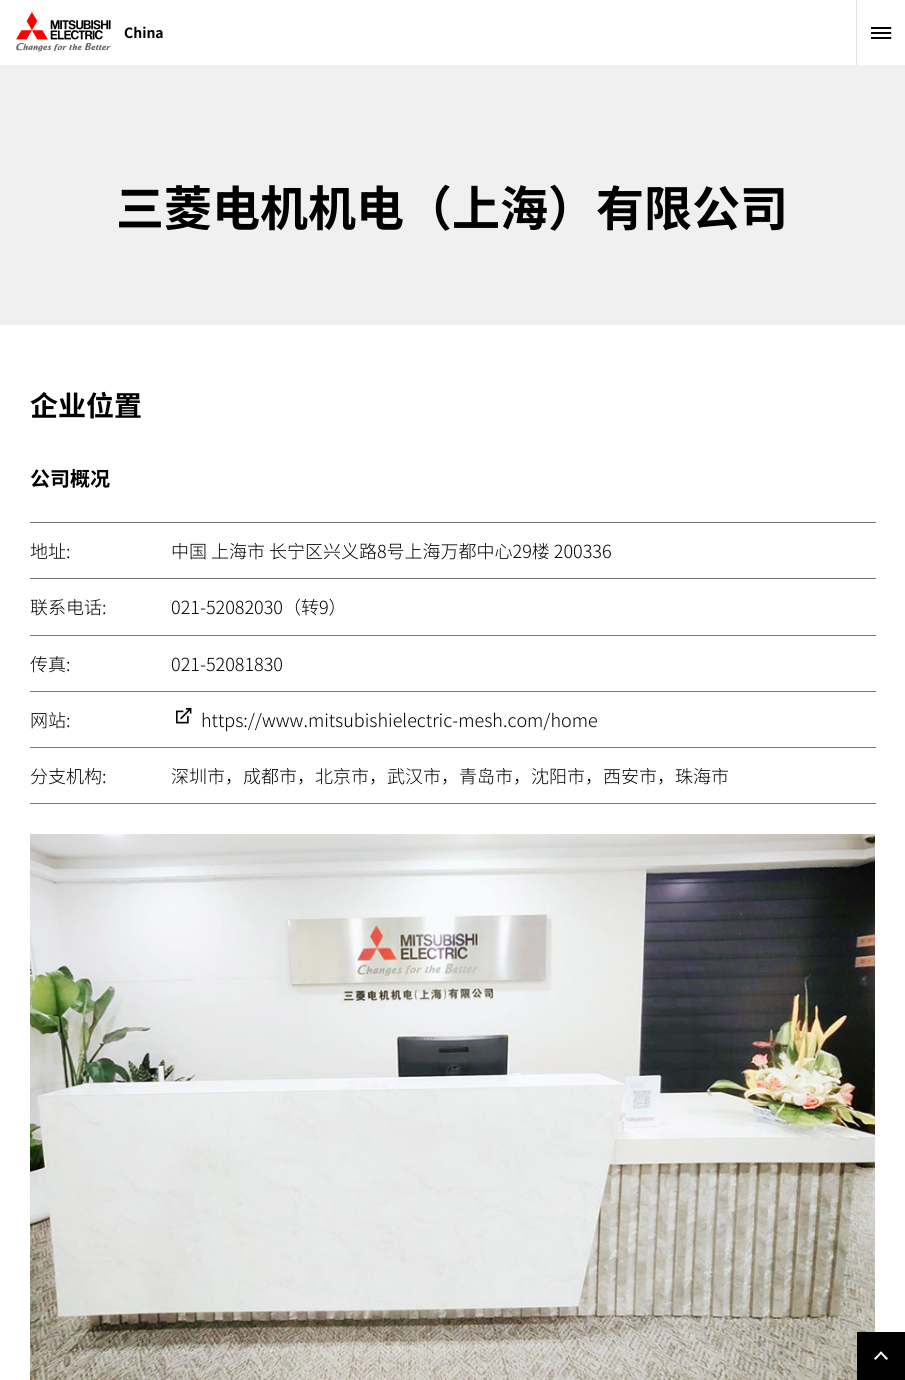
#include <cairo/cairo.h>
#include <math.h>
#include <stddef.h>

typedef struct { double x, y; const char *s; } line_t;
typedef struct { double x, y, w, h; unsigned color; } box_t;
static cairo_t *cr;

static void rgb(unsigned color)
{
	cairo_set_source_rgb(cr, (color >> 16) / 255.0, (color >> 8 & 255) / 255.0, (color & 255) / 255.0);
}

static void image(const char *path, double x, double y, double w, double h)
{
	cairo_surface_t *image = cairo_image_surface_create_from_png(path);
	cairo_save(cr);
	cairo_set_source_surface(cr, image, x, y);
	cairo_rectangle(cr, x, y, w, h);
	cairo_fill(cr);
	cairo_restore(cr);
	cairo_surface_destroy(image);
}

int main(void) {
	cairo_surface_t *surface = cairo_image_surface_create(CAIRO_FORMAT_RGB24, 905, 1380);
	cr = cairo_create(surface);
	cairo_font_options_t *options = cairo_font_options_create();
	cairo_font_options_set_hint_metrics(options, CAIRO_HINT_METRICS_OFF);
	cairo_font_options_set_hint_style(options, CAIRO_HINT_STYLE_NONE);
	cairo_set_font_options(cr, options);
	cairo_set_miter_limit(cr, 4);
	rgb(0xffffff);
	cairo_paint(cr);
	image("img/1.png", 16, 12, 95, 40);
	rgb(0xe1e1e1);
	cairo_rectangle(cr, 856, 0, 1, 65);
	cairo_fill(cr);
	image("img/2.png", 871, 27, 21, 12);
	{
		static const box_t items[] = {
			{0, 65, 905, 260, 0xf0f0f0},
			{30, 522, 846, 1, 0x757575},
			{30, 578, 846, 1, 0x757575},
			{30, 635, 846, 1, 0x757575},
			{30, 691, 846, 1, 0x757575},
		};
		for (size_t i = 0; i < sizeof items / sizeof *items; i++) {
			rgb(items[i].color);
			cairo_rectangle(cr, items[i].x, items[i].y, items[i].w, items[i].h);
			cairo_fill(cr);
		}
	}
	image("img/3.png", 176, 708, 16, 16);
	cairo_rectangle(cr, 30, 747, 846, 1);
	cairo_fill(cr);
	cairo_rectangle(cr, 30, 803, 846, 1);
	cairo_fill(cr);
	image("img/4.png", 30, 834, 845, 546);
	rgb(0x000000);
	cairo_rectangle(cr, 857, 1332, 48, 48);
	cairo_fill(cr);
	rgb(0xffffff);
	cairo_new_path(cr);
	cairo_move_to(cr, 881, 1351.5);
	cairo_line_to(cr, 888, 1358.5);
	cairo_line_to(cr, 886.5, 1360);
	cairo_line_to(cr, 879.5, 1352.5);
	cairo_close_path(cr);
	cairo_fill(cr);
	cairo_new_path(cr);
	cairo_move_to(cr, 881, 1351.5);
	cairo_line_to(cr, 882.5, 1352.5);
	cairo_line_to(cr, 875.5, 1360);
	cairo_line_to(cr, 874, 1358.5);
	cairo_close_path(cr);
	cairo_fill(cr);
	cairo_select_font_face(cr, "Noto Sans SC", CAIRO_FONT_SLANT_NORMAL, CAIRO_FONT_WEIGHT_BOLD);
	cairo_set_font_size(cr, 14);
	rgb(0x000000);
	cairo_move_to(cr, 124, 38);
	cairo_show_text(cr, "China");
	cairo_set_font_size(cr, 48);
	cairo_move_to(cr, 116, 226);
	cairo_show_text(cr, "三菱电机机电（上海）有限公司");
	cairo_set_font_size(cr, 28);
	cairo_move_to(cr, 30, 416);
	cairo_show_text(cr, "企业位置");
	cairo_set_font_size(cr, 20);
	cairo_move_to(cr, 30, 486);
	cairo_show_text(cr, "公司概况");
	cairo_select_font_face(cr, "Noto Sans SC Light", CAIRO_FONT_SLANT_NORMAL, CAIRO_FONT_WEIGHT_NORMAL);
	cairo_set_font_size(cr, 18);
	{
		static const line_t items[] = {
			{30, 558, "地址:"},
			{171, 558, "中国 上海市 长宁区兴义路8号上海万都中心29楼 200336"},
			{30, 614, "联系电话:"},
			{171, 614, "021-52082030（转9）"},
			{30, 671, "传真:"},
			{171, 671, "021-52081830"},
			{30, 727, "网站:"},
			{201, 727, "https://www.mitsubishielectric-mesh.com/home"},
			{30, 783, "分支机构:"},
			{171, 783, "深圳市，成都市，北京市，武汉市，青岛市，沈阳市，西安市，珠海市"},
		};
		for (size_t i = 0; i < sizeof items / sizeof *items; i++) {
			cairo_move_to(cr, items[i].x, items[i].y);
			cairo_show_text(cr, items[i].s);
		}
	}
	cairo_surface_write_to_png(surface, "page.png");
	cairo_font_options_destroy(options);
	cairo_destroy(cr);
	cairo_surface_destroy(surface);
	return 0;
}
